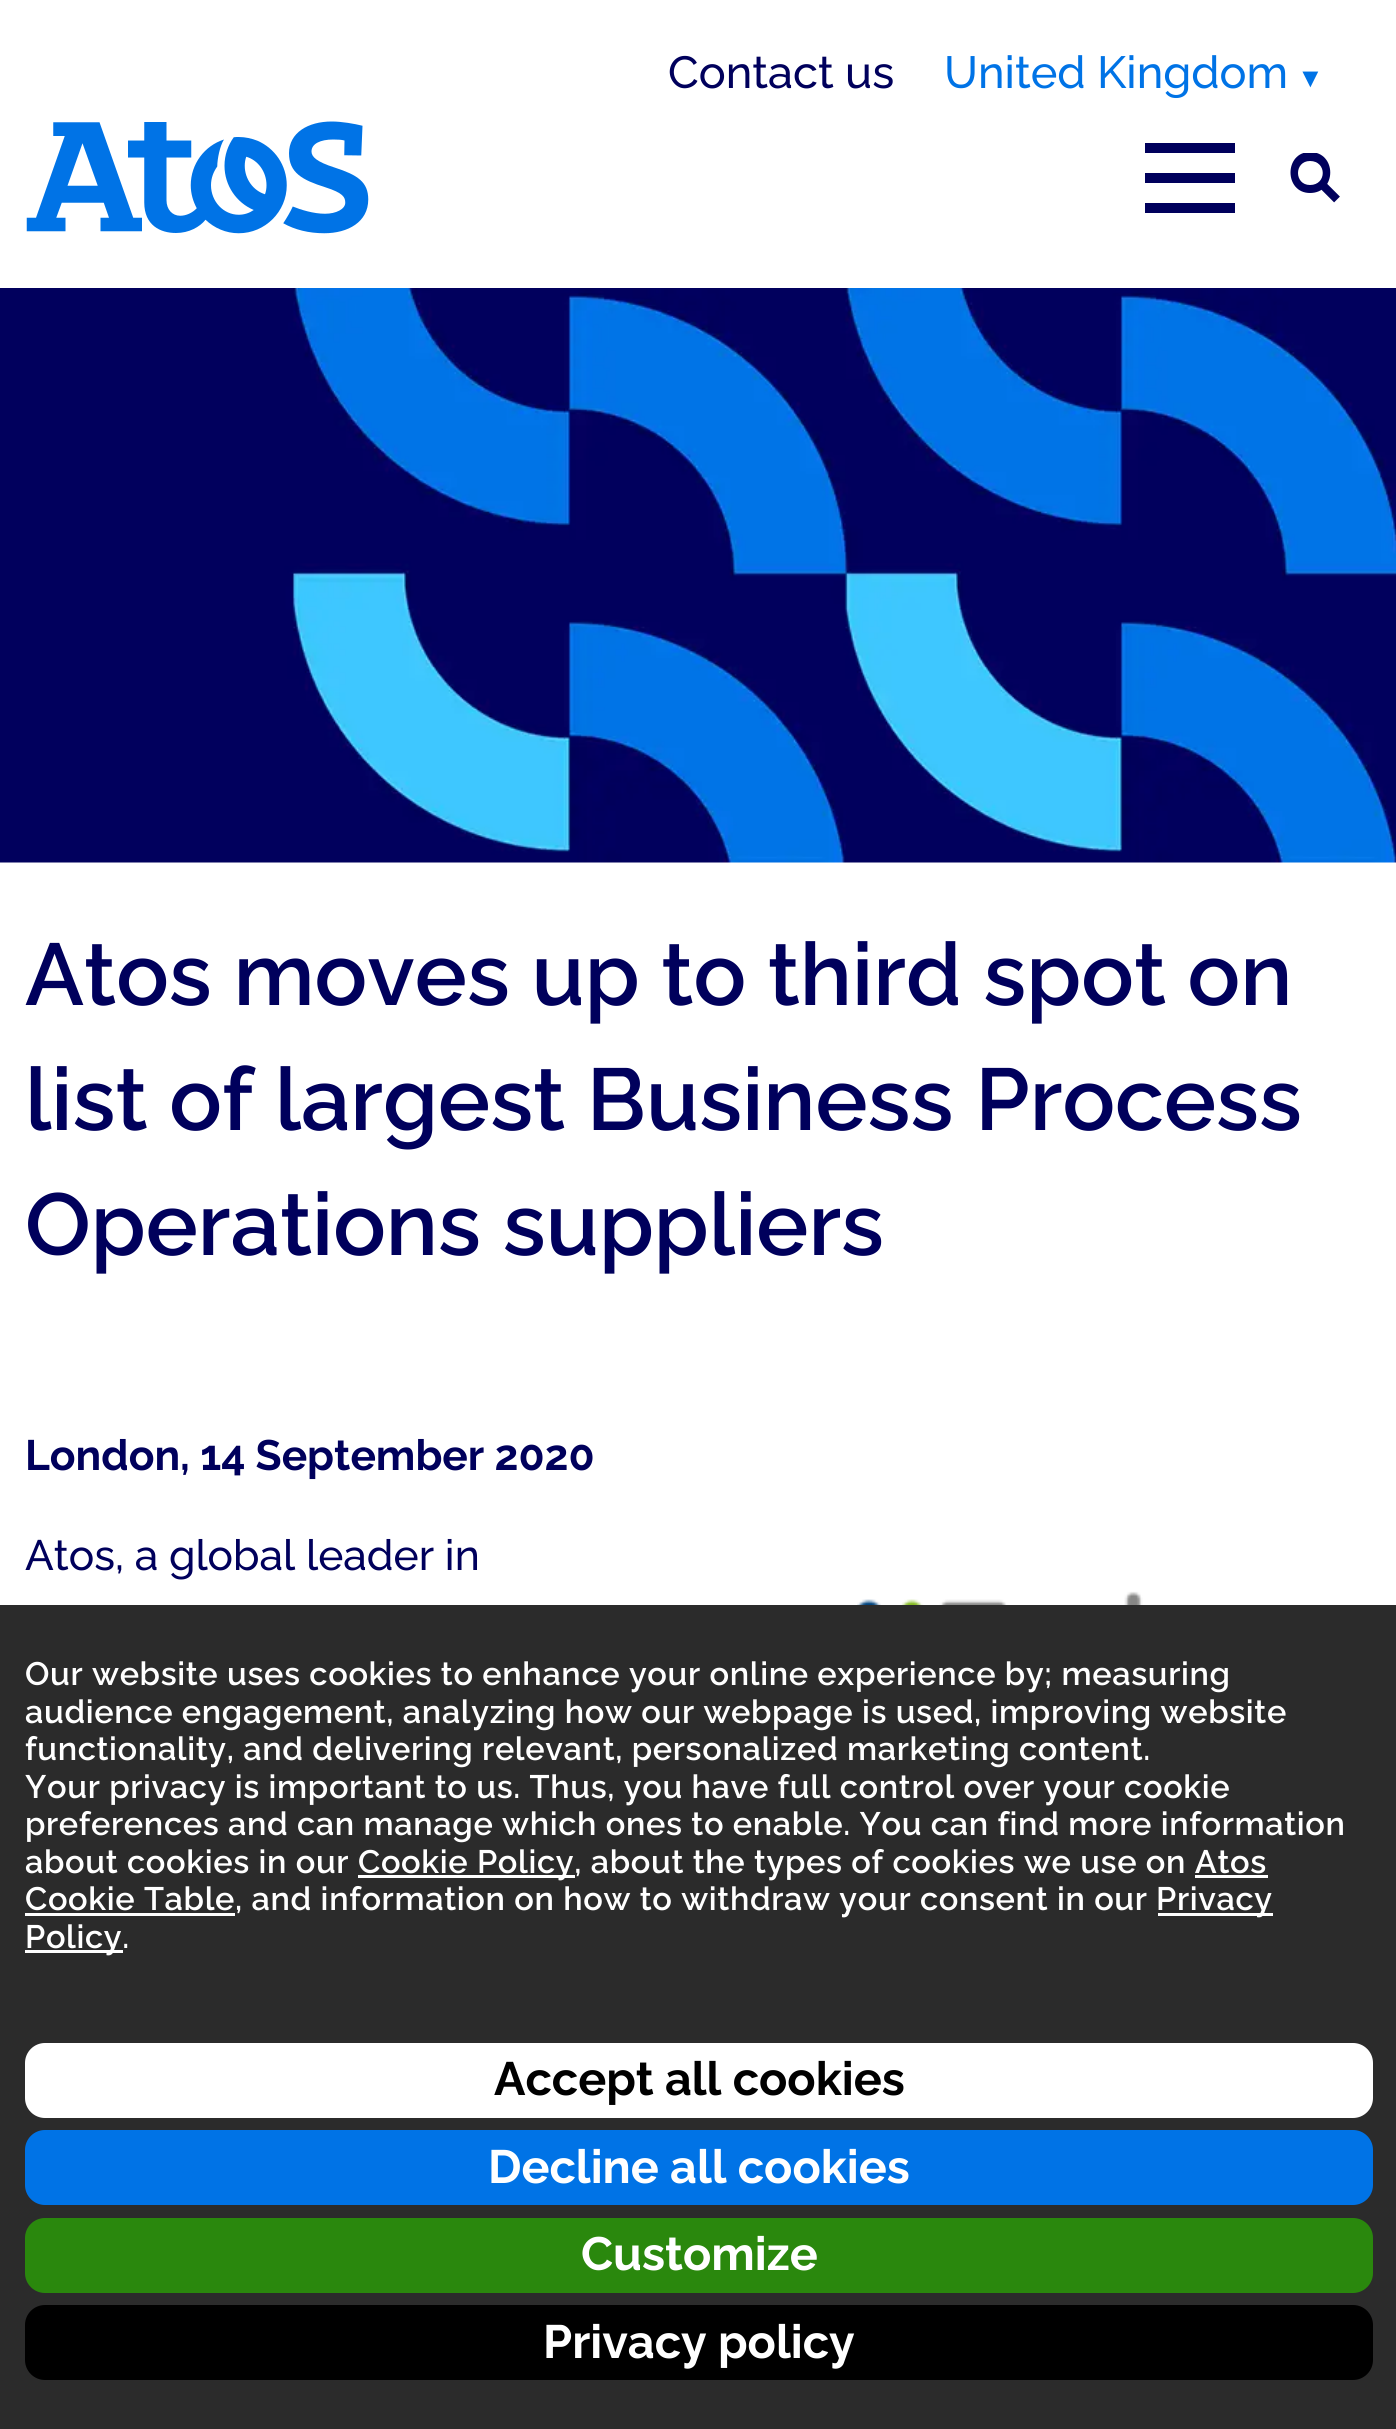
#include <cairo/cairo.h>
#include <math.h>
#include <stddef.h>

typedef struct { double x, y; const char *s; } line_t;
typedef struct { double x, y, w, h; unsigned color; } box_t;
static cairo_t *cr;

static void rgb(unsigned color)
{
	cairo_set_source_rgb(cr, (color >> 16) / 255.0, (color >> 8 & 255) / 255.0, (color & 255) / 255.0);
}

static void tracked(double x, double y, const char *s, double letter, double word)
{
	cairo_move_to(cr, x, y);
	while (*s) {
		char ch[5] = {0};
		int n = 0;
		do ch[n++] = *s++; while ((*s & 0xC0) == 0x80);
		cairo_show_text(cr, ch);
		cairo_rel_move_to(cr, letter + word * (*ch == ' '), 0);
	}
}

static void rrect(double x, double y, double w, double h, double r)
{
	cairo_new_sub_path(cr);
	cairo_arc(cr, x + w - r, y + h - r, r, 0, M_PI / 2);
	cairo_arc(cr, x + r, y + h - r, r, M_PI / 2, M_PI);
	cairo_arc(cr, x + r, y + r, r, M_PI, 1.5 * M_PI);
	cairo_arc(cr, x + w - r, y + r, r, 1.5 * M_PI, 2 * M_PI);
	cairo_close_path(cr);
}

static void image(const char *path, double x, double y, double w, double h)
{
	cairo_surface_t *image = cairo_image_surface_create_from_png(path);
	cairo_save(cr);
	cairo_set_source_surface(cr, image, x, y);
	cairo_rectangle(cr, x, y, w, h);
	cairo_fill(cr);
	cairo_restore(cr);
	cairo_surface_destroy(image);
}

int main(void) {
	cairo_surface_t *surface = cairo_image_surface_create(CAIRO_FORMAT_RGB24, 1396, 2429);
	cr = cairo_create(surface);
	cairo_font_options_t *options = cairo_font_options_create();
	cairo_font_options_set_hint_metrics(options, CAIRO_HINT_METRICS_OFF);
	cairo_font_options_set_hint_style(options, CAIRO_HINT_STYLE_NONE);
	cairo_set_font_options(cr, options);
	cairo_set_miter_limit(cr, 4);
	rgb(0xffffff);
	cairo_paint(cr);
	image("img/1.png", 26, 121, 343, 113);
	{
		static const box_t items[] = {
			{1145, 143, 90, 10, 0x00005c},
			{1145, 173, 90, 10, 0x00005c},
			{1145, 203, 90, 10, 0x00005c},
		};
		for (size_t i = 0; i < sizeof items / sizeof *items; i++) {
			rgb(items[i].color);
			cairo_rectangle(cr, items[i].x, items[i].y, items[i].w, items[i].h);
			cairo_fill(cr);
		}
	}
	cairo_save(cr);
	cairo_rectangle(cr, 1290, 153, 50, 50);
	cairo_clip(cr);
	cairo_new_path(cr);
	cairo_move_to(cr, 1310, 161);
	cairo_curve_to(cr, 1327, 161, 1327, 185, 1310, 185);
	cairo_curve_to(cr, 1294, 185, 1294, 161, 1310, 161);
	cairo_move_to(cr, 1310, 152);
	cairo_curve_to(cr, 1284, 152, 1284, 193, 1310, 193);
	cairo_curve_to(cr, 1337, 193, 1337, 152, 1310, 152);
	cairo_close_path(cr);
	cairo_fill(cr);
	cairo_restore(cr);
	cairo_new_path(cr);
	cairo_move_to(cr, 1321, 183.5);
	cairo_line_to(cr, 1337, 199.5);
	cairo_set_line_width(cr, 8.2);
	cairo_stroke(cr);
	image("img/2.png", 0, 288, 1396, 575);
	image("img/3.png", 857, 1591, 286, 14);
	{
		static const box_t items[] = {
			{0, 1605, 1396, 824, 0x2b2b2b},
			{358, 1875, 217, 3, 0xffffff},
			{1195, 1875, 73, 3, 0xffffff},
			{25, 1913, 210, 3, 0xffffff},
			{1158, 1913, 115, 3, 0xffffff},
			{25, 1950, 98, 3, 0xffffff},
		};
		for (size_t i = 0; i < sizeof items / sizeof *items; i++) {
			rgb(items[i].color);
			cairo_rectangle(cr, items[i].x, items[i].y, items[i].w, items[i].h);
			cairo_fill(cr);
		}
	}
	rrect(25, 2043, 1348, 75, 20);
	cairo_fill(cr);
	rgb(0x0073e6);
	rrect(25, 2130, 1348, 75, 20);
	cairo_fill(cr);
	rgb(0x2a880d);
	rrect(25, 2218, 1348, 75, 20);
	cairo_fill(cr);
	rgb(0x000000);
	rrect(25, 2305, 1348, 75, 20);
	cairo_fill(cr);
	cairo_select_font_face(cr, "Raleway Medium", CAIRO_FONT_SLANT_NORMAL, CAIRO_FONT_WEIGHT_NORMAL);
	cairo_set_font_size(cr, 45);
	rgb(0x00005c);
	cairo_move_to(cr, 668, 88);
	cairo_show_text(cr, "Contact us");
	rgb(0x0073e6);
	cairo_move_to(cr, 944, 88);
	cairo_show_text(cr, "United Kingdom");
	cairo_select_font_face(cr, "Liberation Sans", CAIRO_FONT_SLANT_NORMAL, CAIRO_FONT_WEIGHT_NORMAL);
	cairo_set_font_size(cr, 27);
	tracked(1297, 87, "▼", 9, 0);
	cairo_select_font_face(cr, "Raleway SemiBold", CAIRO_FONT_SLANT_NORMAL, CAIRO_FONT_WEIGHT_NORMAL);
	cairo_set_font_size(cr, 87.5);
	rgb(0x00005c);
	{
		static const line_t items[] = {
			{25, 1005, "Atos moves up to third spot on"},
			{25, 1130, "list of largest Business Process"},
			{25, 1255, "Operations suppliers"},
		};
		for (size_t i = 0; i < sizeof items / sizeof *items; i++) {
			cairo_move_to(cr, items[i].x, items[i].y);
			cairo_show_text(cr, items[i].s);
		}
	}
	cairo_select_font_face(cr, "Raleway", CAIRO_FONT_SLANT_NORMAL, CAIRO_FONT_WEIGHT_BOLD);
	cairo_set_font_size(cr, 42.5);
	cairo_move_to(cr, 25, 1470);
	cairo_show_text(cr, "London, 14 September 2020");
	cairo_select_font_face(cr, "Raleway Medium", CAIRO_FONT_SLANT_NORMAL, CAIRO_FONT_WEIGHT_NORMAL);
	cairo_move_to(cr, 25, 1570);
	cairo_show_text(cr, "Atos, a global leader in");
	cairo_select_font_face(cr, "Raleway SemiBold", CAIRO_FONT_SLANT_NORMAL, CAIRO_FONT_WEIGHT_NORMAL);
	cairo_set_font_size(cr, 32.5);
	rgb(0xffffff);
	{
		static const line_t items[] = {
			{25, 1685, "Our website uses cookies to enhance your online experience by; measuring"},
			{25, 1723, "audience engagement, analyzing how our webpage is used, improving website"},
			{25, 1760, "functionality, and delivering relevant, personalized marketing content."},
			{25, 1798, "Your privacy is important to us. Thus, you have full control over your cookie"},
			{25, 1835, "preferences and can manage which ones to enable. You can find more information"},
			{25, 1873, "about cookies in our"},
			{358, 1873, "Cookie Policy, about the types of cookies we use on Atos"},
			{25, 1910, "Cookie Table, and information on how to withdraw your consent in our"},
			{1156, 1910, "Privacy"},
			{25, 1948, "Policy."},
		};
		for (size_t i = 0; i < sizeof items / sizeof *items; i++) {
			tracked(items[i].x, items[i].y, items[i].s, 0.65, 0);
		}
	}
	cairo_select_font_face(cr, "Raleway", CAIRO_FONT_SLANT_NORMAL, CAIRO_FONT_WEIGHT_BOLD);
	cairo_set_font_size(cr, 46.75);
	rgb(0x000000);
	cairo_move_to(cr, 494, 2095);
	cairo_show_text(cr, "Accept all cookies");
	rgb(0xffffff);
	{
		static const line_t items[] = {
			{488, 2183, "Decline all cookies"},
			{581, 2270, "Customize"},
			{543, 2358, "Privacy policy"},
		};
		for (size_t i = 0; i < sizeof items / sizeof *items; i++) {
			cairo_move_to(cr, items[i].x, items[i].y);
			cairo_show_text(cr, items[i].s);
		}
	}
	cairo_surface_write_to_png(surface, "page.png");
	cairo_font_options_destroy(options);
	cairo_destroy(cr);
	cairo_surface_destroy(surface);
	return 0;
}
